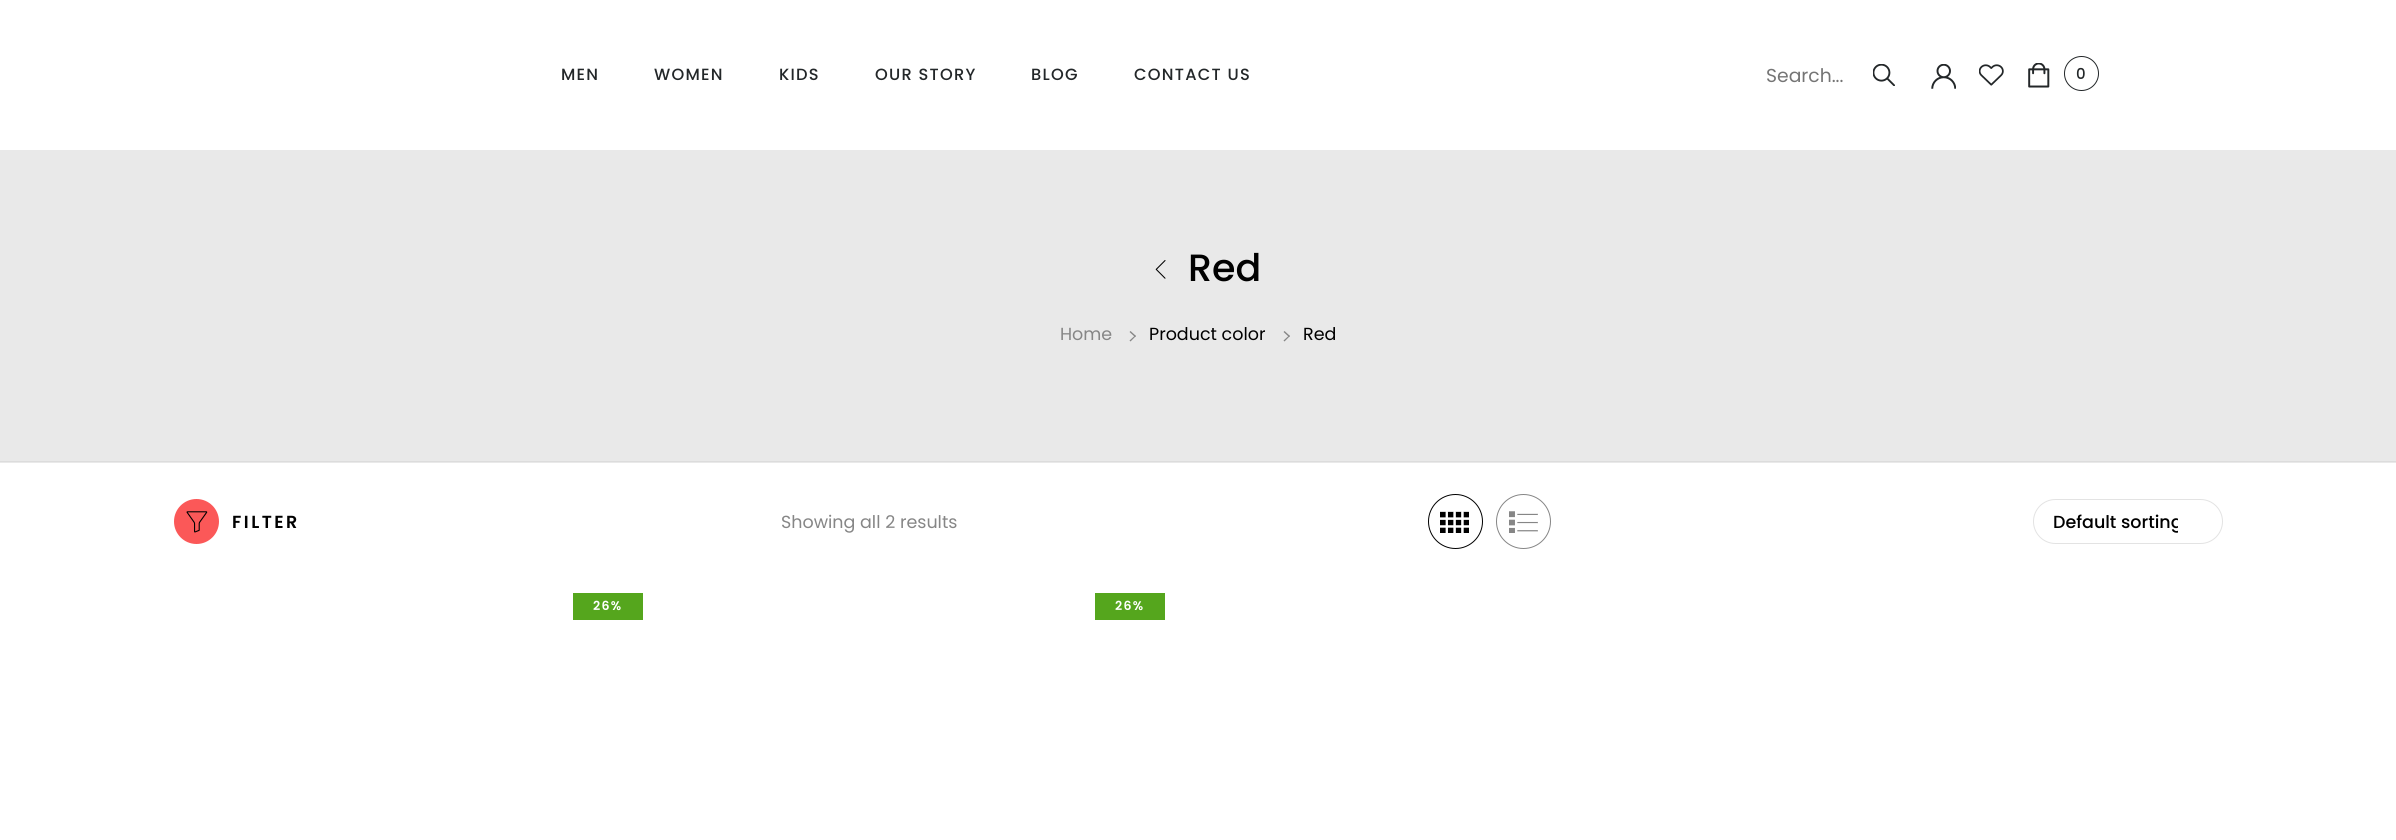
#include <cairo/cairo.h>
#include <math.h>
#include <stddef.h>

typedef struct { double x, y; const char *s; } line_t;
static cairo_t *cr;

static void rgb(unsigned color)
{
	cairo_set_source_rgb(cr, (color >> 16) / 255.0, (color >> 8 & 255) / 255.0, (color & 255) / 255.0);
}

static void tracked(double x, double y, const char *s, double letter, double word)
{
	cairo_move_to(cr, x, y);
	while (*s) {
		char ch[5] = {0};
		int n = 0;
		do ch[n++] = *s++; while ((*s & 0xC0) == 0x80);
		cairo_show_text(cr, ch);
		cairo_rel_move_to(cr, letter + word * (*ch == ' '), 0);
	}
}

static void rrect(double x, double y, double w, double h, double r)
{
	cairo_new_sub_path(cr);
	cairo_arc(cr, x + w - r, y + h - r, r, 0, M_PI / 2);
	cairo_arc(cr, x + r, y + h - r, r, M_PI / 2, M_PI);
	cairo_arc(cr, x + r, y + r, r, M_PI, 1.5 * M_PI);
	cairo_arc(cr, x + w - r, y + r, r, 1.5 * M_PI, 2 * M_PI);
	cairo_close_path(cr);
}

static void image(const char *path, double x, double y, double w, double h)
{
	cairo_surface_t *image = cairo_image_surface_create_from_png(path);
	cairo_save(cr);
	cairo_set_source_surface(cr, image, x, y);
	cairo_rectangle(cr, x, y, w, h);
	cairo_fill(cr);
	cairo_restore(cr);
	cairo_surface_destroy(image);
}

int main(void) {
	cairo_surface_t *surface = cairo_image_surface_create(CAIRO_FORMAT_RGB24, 2396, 840);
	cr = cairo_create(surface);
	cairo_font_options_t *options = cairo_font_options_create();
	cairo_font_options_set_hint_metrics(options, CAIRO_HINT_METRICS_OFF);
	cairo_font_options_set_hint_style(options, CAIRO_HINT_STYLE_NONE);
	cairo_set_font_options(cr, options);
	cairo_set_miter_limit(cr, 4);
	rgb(0xffffff);
	cairo_paint(cr);
	image("img/1.png", 1873, 64, 22, 22);
	image("img/2.png", 1931, 64, 25, 25);
	image("img/3.png", 1979, 64, 25, 22);
	image("img/4.png", 2028, 63, 22, 25);
	cairo_arc(cr, 2081.5, 73.5, 17, 0, 2 * M_PI);
	rgb(0x232729);
	cairo_set_line_width(cr, 1);
	cairo_stroke(cr);
	rgb(0xe9e9e9);
	cairo_rectangle(cr, 0, 150, 2396, 313);
	cairo_fill(cr);
	rgb(0xdcdcdc);
	cairo_rectangle(cr, 0, 461, 2396, 1);
	cairo_fill(cr);
	image("img/5.png", 1155, 260, 11, 19);
	rgb(0x868686);
	cairo_new_path(cr);
	cairo_move_to(cr, 1130.5, 331);
	cairo_line_to(cr, 1136, 336);
	cairo_line_to(cr, 1135, 337);
	cairo_line_to(cr, 1129.5, 332);
	cairo_close_path(cr);
	cairo_fill(cr);
	cairo_new_path(cr);
	cairo_move_to(cr, 1135, 335.5);
	cairo_line_to(cr, 1136, 336);
	cairo_line_to(cr, 1130.5, 341.5);
	cairo_line_to(cr, 1129.5, 340.5);
	cairo_close_path(cr);
	cairo_fill(cr);
	cairo_new_path(cr);
	cairo_move_to(cr, 1284.5, 331);
	cairo_line_to(cr, 1290, 336);
	cairo_line_to(cr, 1289, 337);
	cairo_line_to(cr, 1283.5, 332);
	cairo_close_path(cr);
	cairo_fill(cr);
	cairo_new_path(cr);
	cairo_move_to(cr, 1289, 335.5);
	cairo_line_to(cr, 1290, 336);
	cairo_line_to(cr, 1284.5, 341.5);
	cairo_line_to(cr, 1283.5, 340.5);
	cairo_close_path(cr);
	cairo_fill(cr);
	rgb(0xfb5858);
	cairo_arc(cr, 196.5, 521.5, 22.5, 0, 2 * M_PI);
	cairo_fill(cr);
	image("img/6.png", 186, 511, 22, 22);
	cairo_arc(cr, 1455.5, 521.5, 27, 0, 2 * M_PI);
	rgb(0x000000);
	cairo_stroke(cr);
	image("img/7.png", 1440, 511, 29, 22);
	cairo_arc(cr, 1523.5, 521.5, 27, 0, 2 * M_PI);
	rgb(0x868686);
	cairo_stroke(cr);
	image("img/8.png", 1509, 511, 29, 22);
	rrect(2033.5, 499.5, 189, 44, 22);
	rgb(0xe3e3e3);
	cairo_stroke(cr);
	rgb(0x55a61d);
	cairo_rectangle(cr, 573, 593, 70, 27);
	cairo_fill(cr);
	cairo_rectangle(cr, 1095, 593, 70, 27);
	cairo_fill(cr);
	cairo_select_font_face(cr, "Poppins Medium", CAIRO_FONT_SLANT_NORMAL, CAIRO_FONT_WEIGHT_NORMAL);
	cairo_set_font_size(cr, 16.25);
	rgb(0x232729);
	{
		static const line_t items[] = {
			{561, 80, "MEN"},
			{654, 80, "WOMEN"},
			{779, 80, "KIDS"},
			{875, 80, "OUR STORY"},
			{1031, 80, "BLOG"},
			{1134, 80, "CONTACT US"},
		};
		for (size_t i = 0; i < sizeof items / sizeof *items; i++) {
			tracked(items[i].x, items[i].y, items[i].s, 1.25, 0);
		}
	}
	cairo_select_font_face(cr, "Poppins", CAIRO_FONT_SLANT_NORMAL, CAIRO_FONT_WEIGHT_NORMAL);
	cairo_set_font_size(cr, 18.75);
	rgb(0x757575);
	cairo_move_to(cr, 1766, 82);
	cairo_show_text(cr, "Search...");
	cairo_select_font_face(cr, "Poppins Medium", CAIRO_FONT_SLANT_NORMAL, CAIRO_FONT_WEIGHT_NORMAL);
	cairo_set_font_size(cr, 15);
	rgb(0x232729);
	cairo_move_to(cr, 2076, 79);
	cairo_show_text(cr, "0");
	cairo_set_font_size(cr, 38);
	rgb(0x000000);
	cairo_move_to(cr, 1188, 281);
	cairo_show_text(cr, "Red");
	cairo_select_font_face(cr, "Poppins", CAIRO_FONT_SLANT_NORMAL, CAIRO_FONT_WEIGHT_NORMAL);
	cairo_set_font_size(cr, 17.5);
	rgb(0x868686);
	cairo_move_to(cr, 1060, 340);
	cairo_show_text(cr, "Home");
	rgb(0x000000);
	cairo_move_to(cr, 1149, 340);
	cairo_show_text(cr, "Product color");
	cairo_move_to(cr, 1303, 340);
	cairo_show_text(cr, "Red");
	cairo_select_font_face(cr, "Poppins SemiBold", CAIRO_FONT_SLANT_NORMAL, CAIRO_FONT_WEIGHT_NORMAL);
	tracked(232, 528, "FILTER", 2.5, 0);
	cairo_select_font_face(cr, "Poppins", CAIRO_FONT_SLANT_NORMAL, CAIRO_FONT_WEIGHT_NORMAL);
	rgb(0x868686);
	cairo_move_to(cr, 781, 528);
	cairo_show_text(cr, "Showing all 2 results");
	cairo_save(cr);
	cairo_rectangle(cr, 2053, 503, 125, 37);
	cairo_clip(cr);
	cairo_select_font_face(cr, "Poppins Medium", CAIRO_FONT_SLANT_NORMAL, CAIRO_FONT_WEIGHT_NORMAL);
	rgb(0x000000);
	cairo_move_to(cr, 2053, 528);
	cairo_show_text(cr, "Default sorting");
	cairo_restore(cr);
	cairo_select_font_face(cr, "Poppins SemiBold", CAIRO_FONT_SLANT_NORMAL, CAIRO_FONT_WEIGHT_NORMAL);
	cairo_set_font_size(cr, 12.5);
	rgb(0xffffff);
	tracked(593, 610, "26%", 1.25, 0);
	tracked(1115, 610, "26%", 1.25, 0);
	cairo_surface_write_to_png(surface, "page.png");
	cairo_font_options_destroy(options);
	cairo_destroy(cr);
	cairo_surface_destroy(surface);
	return 0;
}
